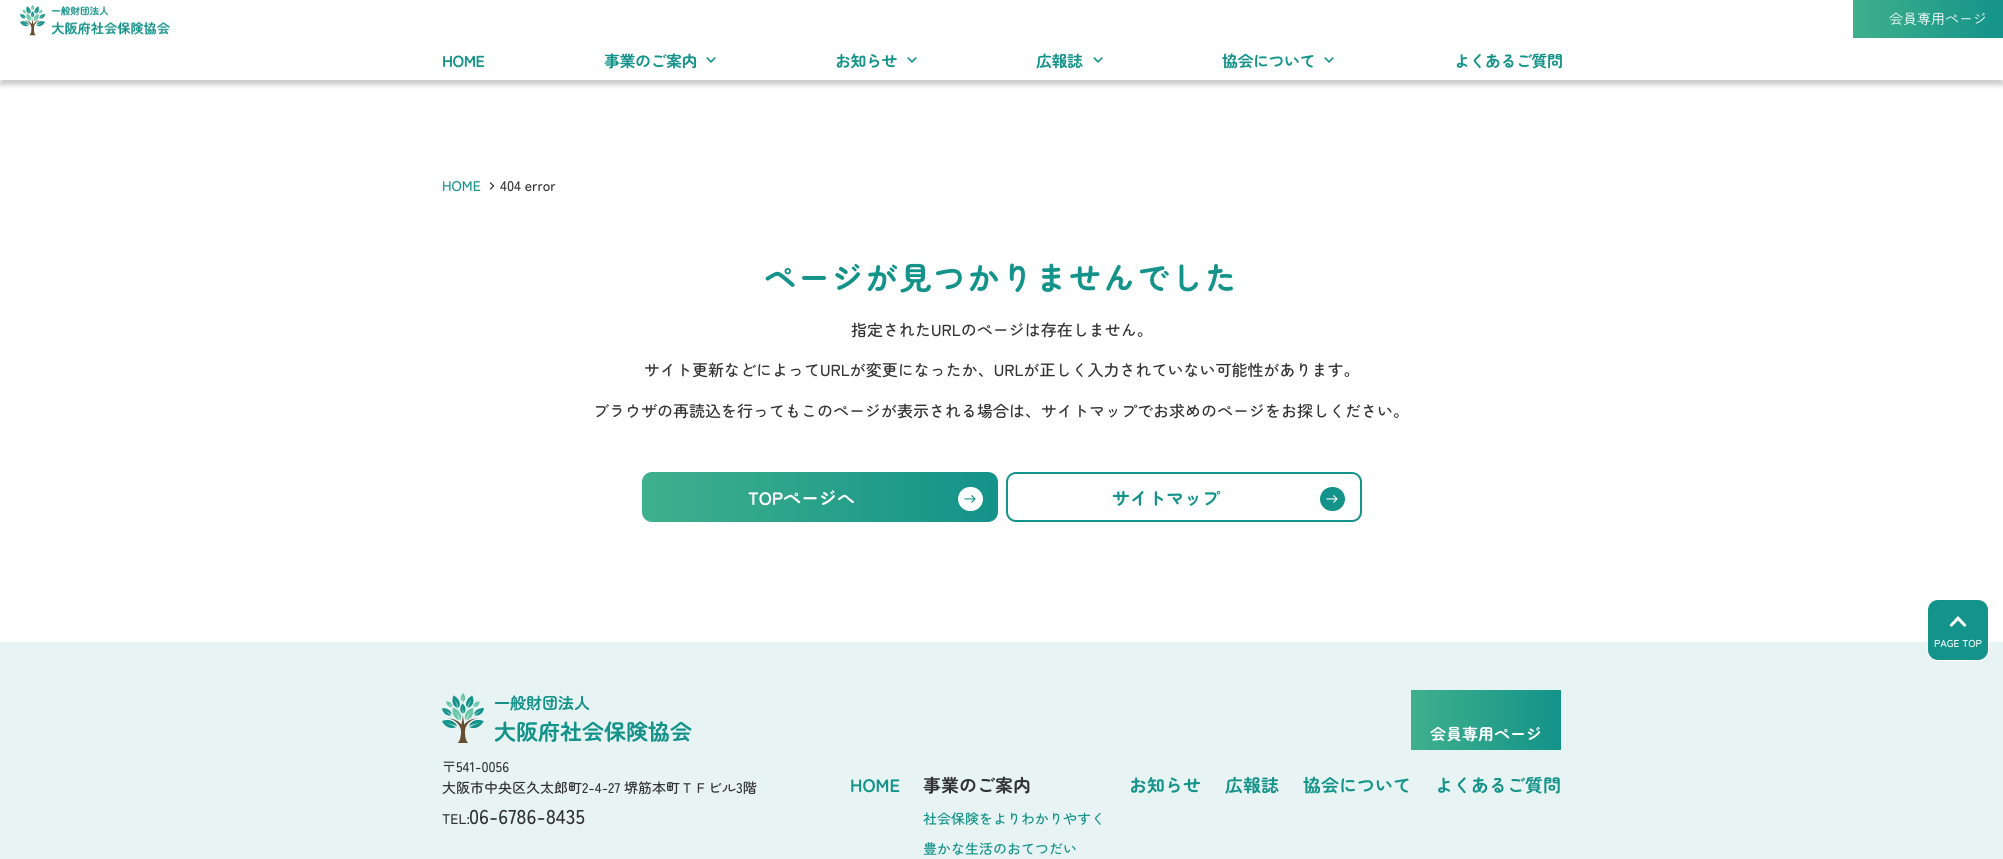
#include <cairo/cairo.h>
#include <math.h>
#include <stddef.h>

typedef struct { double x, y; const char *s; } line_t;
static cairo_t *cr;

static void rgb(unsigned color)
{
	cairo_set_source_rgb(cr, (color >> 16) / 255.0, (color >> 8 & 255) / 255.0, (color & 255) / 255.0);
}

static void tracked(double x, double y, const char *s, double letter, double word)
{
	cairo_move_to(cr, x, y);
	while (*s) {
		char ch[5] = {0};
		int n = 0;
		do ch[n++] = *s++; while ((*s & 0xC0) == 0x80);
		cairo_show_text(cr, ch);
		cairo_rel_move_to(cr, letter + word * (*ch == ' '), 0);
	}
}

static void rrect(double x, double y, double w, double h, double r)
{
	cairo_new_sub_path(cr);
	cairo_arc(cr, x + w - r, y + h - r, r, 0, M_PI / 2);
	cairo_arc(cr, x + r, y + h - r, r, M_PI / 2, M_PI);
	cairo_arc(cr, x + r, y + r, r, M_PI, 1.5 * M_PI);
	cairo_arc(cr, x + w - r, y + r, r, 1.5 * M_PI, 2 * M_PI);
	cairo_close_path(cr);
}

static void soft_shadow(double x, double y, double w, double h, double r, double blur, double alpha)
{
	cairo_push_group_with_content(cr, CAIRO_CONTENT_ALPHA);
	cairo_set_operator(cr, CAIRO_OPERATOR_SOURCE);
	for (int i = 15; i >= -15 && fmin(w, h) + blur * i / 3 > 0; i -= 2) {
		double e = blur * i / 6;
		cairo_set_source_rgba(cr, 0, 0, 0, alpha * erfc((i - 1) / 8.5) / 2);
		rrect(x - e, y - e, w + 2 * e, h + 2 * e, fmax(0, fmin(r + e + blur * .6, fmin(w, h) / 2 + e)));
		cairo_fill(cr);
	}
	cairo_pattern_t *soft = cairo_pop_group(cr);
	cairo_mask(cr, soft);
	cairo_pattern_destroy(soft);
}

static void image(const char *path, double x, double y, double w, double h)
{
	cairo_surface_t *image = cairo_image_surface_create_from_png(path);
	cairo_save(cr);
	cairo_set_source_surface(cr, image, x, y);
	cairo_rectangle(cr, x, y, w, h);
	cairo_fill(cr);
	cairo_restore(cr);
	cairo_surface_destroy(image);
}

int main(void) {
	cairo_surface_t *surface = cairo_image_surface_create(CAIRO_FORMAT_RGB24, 2003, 859);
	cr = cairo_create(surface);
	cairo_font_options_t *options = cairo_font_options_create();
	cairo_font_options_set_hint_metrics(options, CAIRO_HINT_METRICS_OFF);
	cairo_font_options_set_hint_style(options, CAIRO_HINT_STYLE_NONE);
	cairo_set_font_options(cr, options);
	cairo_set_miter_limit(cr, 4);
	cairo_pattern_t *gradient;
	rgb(0xffffff);
	cairo_paint(cr);
	rgb(0x000000);
	soft_shadow(0, 5, 2003, 80, 0, 2.5, 0.2);
	rgb(0xffffff);
	cairo_rectangle(cr, 0, 1, 2003, 79);
	cairo_fill(cr);
	image("img/1.png", 20, 5, 150, 31);
	gradient = cairo_pattern_create_linear(1853, 18, 2003, 18);
	cairo_pattern_add_color_stop_rgba(gradient, 0, 0.247, 0.69, 0.549, 1);
	cairo_pattern_add_color_stop_rgba(gradient, 1, 0.078, 0.576, 0.541, 1);
	cairo_set_source(cr, gradient);
	cairo_pattern_destroy(gradient);
	cairo_rectangle(cr, 1853, 0, 150, 38);
	cairo_fill(cr);
	image("img/2.png", 706, 57, 10, 6);
	image("img/2.png", 907, 57, 10, 6);
	image("img/2.png", 1093, 57, 10, 6);
	image("img/2.png", 1324, 57, 10, 6);
	image("img/3.png", 489, 182, 6, 8);
	gradient = cairo_pattern_create_linear(642, 497, 998, 497);
	cairo_pattern_add_color_stop_rgba(gradient, 0, 0.247, 0.69, 0.549, 1);
	cairo_pattern_add_color_stop_rgba(gradient, 1, 0.078, 0.576, 0.541, 1);
	cairo_set_source(cr, gradient);
	cairo_pattern_destroy(gradient);
	rrect(642, 472, 356, 50, 10);
	cairo_fill(cr);
	rgb(0xffffff);
	rrect(958, 487, 25, 24, 12);
	cairo_fill(cr);
	image("img/4.png", 964, 495, 12, 8);
	rrect(1007, 473, 354, 48, 9);
	rgb(0x14938a);
	cairo_stroke(cr);
	rrect(1320, 487, 25, 24, 12);
	cairo_fill(cr);
	image("img/5.png", 1326, 495, 12, 8);
	rgb(0xe7f4f3);
	cairo_rectangle(cr, 0, 642, 2003, 217);
	cairo_fill(cr);
	rrect(1927.5, 599.5, 61, 61, 10.5);
	rgb(0xffffff);
	cairo_set_line_width(cr, 1);
	cairo_stroke(cr);
	rgb(0x14938a);
	rrect(1928, 600, 60, 60, 10);
	cairo_fill(cr);
	rgb(0xffffff);
	cairo_new_path(cr);
	cairo_move_to(cr, 1949.5, 625);
	cairo_line_to(cr, 1958, 616);
	cairo_line_to(cr, 1966.5, 625);
	cairo_line_to(cr, 1964.5, 627);
	cairo_line_to(cr, 1958, 620.5);
	cairo_line_to(cr, 1951.5, 627);
	cairo_close_path(cr);
	cairo_fill(cr);
	image("img/6.png", 442, 693, 250, 50);
	gradient = cairo_pattern_create_linear(1411, 720, 1561, 720);
	cairo_pattern_add_color_stop_rgba(gradient, 0, 0.247, 0.69, 0.549, 1);
	cairo_pattern_add_color_stop_rgba(gradient, 1, 0.078, 0.576, 0.541, 1);
	cairo_set_source(cr, gradient);
	cairo_pattern_destroy(gradient);
	cairo_rectangle(cr, 1411, 690, 150, 60);
	cairo_fill(cr);
	cairo_select_font_face(cr, "Zen Maru Gothic", CAIRO_FONT_SLANT_NORMAL, CAIRO_FONT_WEIGHT_NORMAL);
	cairo_set_font_size(cr, 14);
	rgb(0xffffff);
	cairo_move_to(cr, 1889, 24);
	cairo_show_text(cr, "会員専用ページ");
	cairo_select_font_face(cr, "Zen Maru Gothic", CAIRO_FONT_SLANT_NORMAL, CAIRO_FONT_WEIGHT_BOLD);
	cairo_set_font_size(cr, 16);
	rgb(0x14938a);
	{
		static const line_t items[] = {
			{442, 67, "HOME"},
			{604, 67, "事業のご案内"},
			{835, 67, "お知らせ"},
			{1036, 67, "広報誌"},
			{1222, 67, "協会について"},
			{1454, 67, "よくあるご質問"},
		};
		for (size_t i = 0; i < sizeof items / sizeof *items; i++) {
			tracked(items[i].x, items[i].y, items[i].s, -0.5, 0);
		}
	}
	cairo_select_font_face(cr, "Zen Maru Gothic Medium", CAIRO_FONT_SLANT_NORMAL, CAIRO_FONT_WEIGHT_NORMAL);
	cairo_set_font_size(cr, 14);
	cairo_move_to(cr, 442, 191);
	cairo_show_text(cr, "HOME");
	rgb(0x333333);
	cairo_move_to(cr, 500, 191);
	cairo_show_text(cr, "404 error");
	cairo_select_font_face(cr, "Zen Maru Gothic", CAIRO_FONT_SLANT_NORMAL, CAIRO_FONT_WEIGHT_BOLD);
	cairo_set_font_size(cr, 32);
	rgb(0x14938a);
	tracked(764, 290, "ページが見つかりませんでした", 1.9, 0);
	cairo_select_font_face(cr, "Zen Maru Gothic Medium", CAIRO_FONT_SLANT_NORMAL, CAIRO_FONT_WEIGHT_NORMAL);
	cairo_set_font_size(cr, 16);
	rgb(0x333333);
	{
		static const line_t items[] = {
			{851, 336, "指定されたURLのページは存在しません。"},
			{644, 376, "サイト更新などによってURLが変更になったか、URLが正しく入力されていない可能性があります。"},
			{593, 417, "ブラウザの再読込を行ってもこのページが表示される場合は、サイトマップでお求めのページをお探しください。"},
		};
		for (size_t i = 0; i < sizeof items / sizeof *items; i++) {
			cairo_move_to(cr, items[i].x, items[i].y);
			cairo_show_text(cr, items[i].s);
		}
	}
	cairo_select_font_face(cr, "Zen Maru Gothic", CAIRO_FONT_SLANT_NORMAL, CAIRO_FONT_WEIGHT_BOLD);
	cairo_set_font_size(cr, 18);
	rgb(0xffffff);
	cairo_move_to(cr, 748, 505);
	cairo_show_text(cr, "TOPページへ");
	rgb(0x14938a);
	cairo_move_to(cr, 1112, 505);
	cairo_show_text(cr, "サイトマップ");
	cairo_select_font_face(cr, "Zen Maru Gothic Medium", CAIRO_FONT_SLANT_NORMAL, CAIRO_FONT_WEIGHT_NORMAL);
	cairo_set_font_size(cr, 10);
	rgb(0xffffff);
	cairo_move_to(cr, 1934, 647);
	cairo_show_text(cr, "PAGE TOP");
	cairo_set_font_size(cr, 14);
	rgb(0x333333);
	{
		static const line_t items[] = {
			{442, 772, "〒541-0056"},
			{442, 793, "大阪市中央区久太郎町2-4-27 堺筋本町ＴＦビル3階"},
			{442, 824, "TEL:"},
		};
		for (size_t i = 0; i < sizeof items / sizeof *items; i++) {
			cairo_move_to(cr, items[i].x, items[i].y);
			cairo_show_text(cr, items[i].s);
		}
	}
	cairo_set_font_size(cr, 20);
	cairo_move_to(cr, 469, 824);
	cairo_show_text(cr, "06-6786-8435");
	cairo_select_font_face(cr, "Zen Maru Gothic", CAIRO_FONT_SLANT_NORMAL, CAIRO_FONT_WEIGHT_BOLD);
	cairo_set_font_size(cr, 16);
	rgb(0xffffff);
	cairo_move_to(cr, 1430, 740);
	cairo_show_text(cr, "会員専用ページ");
	cairo_set_font_size(cr, 18);
	rgb(0x14938a);
	cairo_move_to(cr, 850, 792);
	cairo_show_text(cr, "HOME");
	rgb(0x333333);
	cairo_move_to(cr, 923, 792);
	cairo_show_text(cr, "事業のご案内");
	cairo_select_font_face(cr, "Zen Maru Gothic Medium", CAIRO_FONT_SLANT_NORMAL, CAIRO_FONT_WEIGHT_NORMAL);
	cairo_set_font_size(cr, 14);
	rgb(0x14938a);
	cairo_move_to(cr, 923, 824);
	cairo_show_text(cr, "社会保険をよりわかりやすく");
	cairo_move_to(cr, 923, 854);
	cairo_show_text(cr, "豊かな生活のおてつだい");
	cairo_select_font_face(cr, "Zen Maru Gothic", CAIRO_FONT_SLANT_NORMAL, CAIRO_FONT_WEIGHT_BOLD);
	cairo_set_font_size(cr, 18);
	{
		static const line_t items[] = {
			{1129, 792, "お知らせ"},
			{1225, 792, "広報誌"},
			{1303, 792, "協会について"},
			{1435, 792, "よくあるご質問"},
		};
		for (size_t i = 0; i < sizeof items / sizeof *items; i++) {
			cairo_move_to(cr, items[i].x, items[i].y);
			cairo_show_text(cr, items[i].s);
		}
	}
	cairo_surface_write_to_png(surface, "page.png");
	cairo_font_options_destroy(options);
	cairo_destroy(cr);
	cairo_surface_destroy(surface);
	return 0;
}
